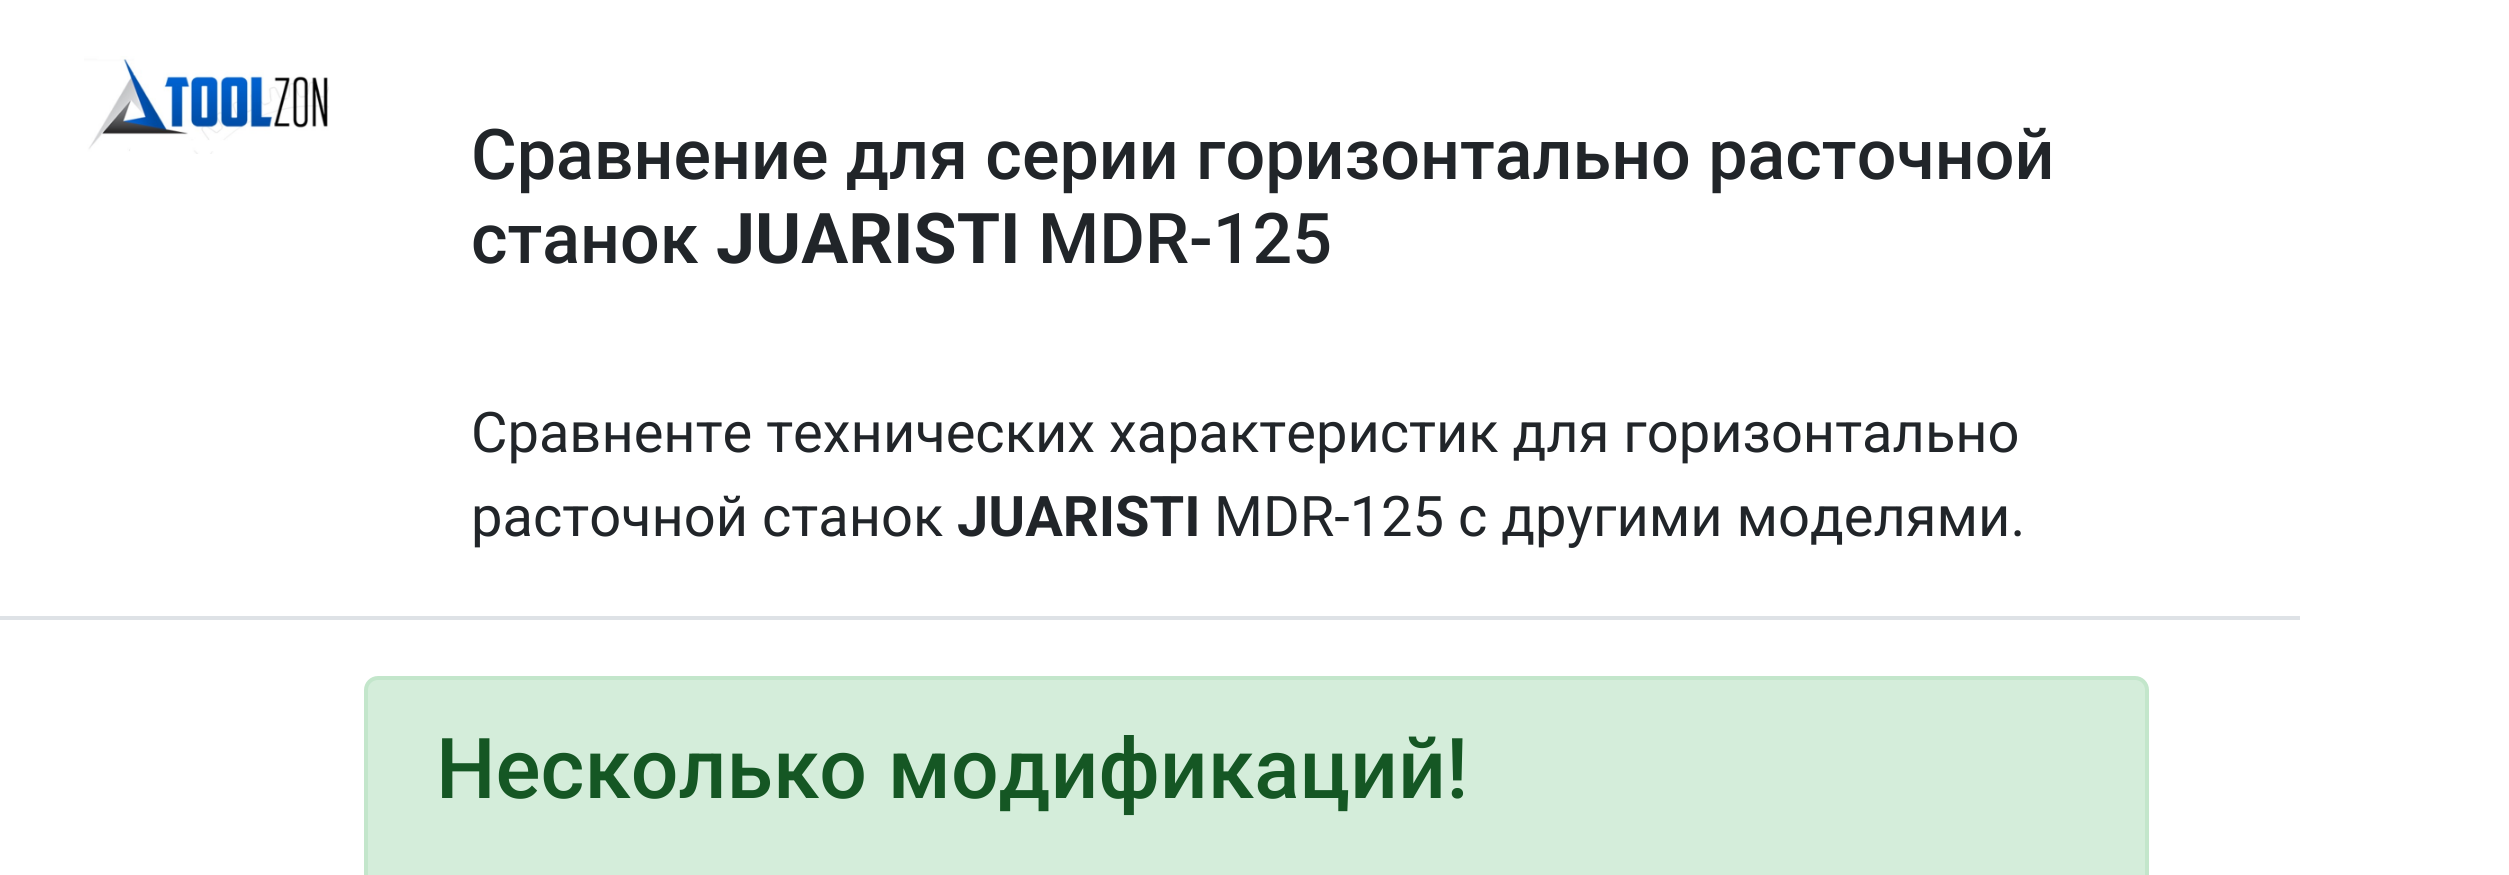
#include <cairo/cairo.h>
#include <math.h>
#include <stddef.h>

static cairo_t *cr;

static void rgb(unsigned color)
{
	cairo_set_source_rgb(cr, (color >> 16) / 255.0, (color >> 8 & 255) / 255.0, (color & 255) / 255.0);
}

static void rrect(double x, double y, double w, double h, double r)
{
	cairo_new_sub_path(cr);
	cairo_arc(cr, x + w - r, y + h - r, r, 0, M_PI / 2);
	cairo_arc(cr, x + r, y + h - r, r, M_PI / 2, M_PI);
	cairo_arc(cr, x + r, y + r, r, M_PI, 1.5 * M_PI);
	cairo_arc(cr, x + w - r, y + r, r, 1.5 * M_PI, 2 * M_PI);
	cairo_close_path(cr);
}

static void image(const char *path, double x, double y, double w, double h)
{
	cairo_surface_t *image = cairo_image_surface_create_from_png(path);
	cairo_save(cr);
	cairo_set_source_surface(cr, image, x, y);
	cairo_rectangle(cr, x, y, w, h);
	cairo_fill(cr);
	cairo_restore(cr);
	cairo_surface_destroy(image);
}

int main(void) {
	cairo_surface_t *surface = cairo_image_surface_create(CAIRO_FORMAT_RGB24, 2509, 875);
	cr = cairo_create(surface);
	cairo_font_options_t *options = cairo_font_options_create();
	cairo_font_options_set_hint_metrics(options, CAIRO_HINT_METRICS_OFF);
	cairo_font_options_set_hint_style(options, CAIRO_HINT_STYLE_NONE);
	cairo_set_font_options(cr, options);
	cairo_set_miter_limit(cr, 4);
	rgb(0xffffff);
	cairo_paint(cr);
	rgb(0xdee2e6);
	cairo_rectangle(cr, 0, 616, 2300, 4);
	cairo_fill(cr);
	image("img/1.png", 84, 56, 245, 98);
	rgb(0xd4edda);
	rrect(366, 678, 1781, 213, 12);
	cairo_fill_preserve(cr);
	rgb(0xc3e6cb);
	cairo_set_line_width(cr, 4);
	cairo_stroke(cr);
	cairo_select_font_face(cr, "Roboto Medium", CAIRO_FONT_SLANT_NORMAL, CAIRO_FONT_WEIGHT_NORMAL);
	cairo_set_font_size(cr, 70);
	rgb(0x212529);
	cairo_move_to(cr, 471, 179);
	cairo_show_text(cr, "Сравнение для серии горизонтально расточной");
	cairo_move_to(cr, 471, 263);
	cairo_show_text(cr, "станок");
	cairo_select_font_face(cr, "Roboto", CAIRO_FONT_SLANT_NORMAL, CAIRO_FONT_WEIGHT_BOLD);
	cairo_move_to(cr, 716, 263);
	cairo_show_text(cr, "JUARISTI");
	cairo_select_font_face(cr, "Roboto Medium", CAIRO_FONT_SLANT_NORMAL, CAIRO_FONT_WEIGHT_NORMAL);
	cairo_move_to(cr, 1038, 263);
	cairo_show_text(cr, "MDR-125");
	cairo_select_font_face(cr, "Roboto", CAIRO_FONT_SLANT_NORMAL, CAIRO_FONT_WEIGHT_NORMAL);
	cairo_set_font_size(cr, 56);
	cairo_move_to(cr, 471, 452);
	cairo_show_text(cr, "Сравненте технических характеристик для горизонтально");
	cairo_move_to(cr, 471, 536);
	cairo_show_text(cr, "расточной станок");
	cairo_select_font_face(cr, "Roboto", CAIRO_FONT_SLANT_NORMAL, CAIRO_FONT_WEIGHT_BOLD);
	cairo_move_to(cr, 957, 536);
	cairo_show_text(cr, "JUARISTI");
	cairo_select_font_face(cr, "Roboto", CAIRO_FONT_SLANT_NORMAL, CAIRO_FONT_WEIGHT_NORMAL);
	cairo_move_to(cr, 1214, 536);
	cairo_show_text(cr, "MDR-125 с другими моделями.");
	cairo_select_font_face(cr, "Roboto Medium", CAIRO_FONT_SLANT_NORMAL, CAIRO_FONT_WEIGHT_NORMAL);
	cairo_set_font_size(cr, 84);
	rgb(0x155724);
	cairo_move_to(cr, 436, 798);
	cairo_show_text(cr, "Несколько модификаций!");
	cairo_surface_write_to_png(surface, "page.png");
	cairo_font_options_destroy(options);
	cairo_destroy(cr);
	cairo_surface_destroy(surface);
	return 0;
}
